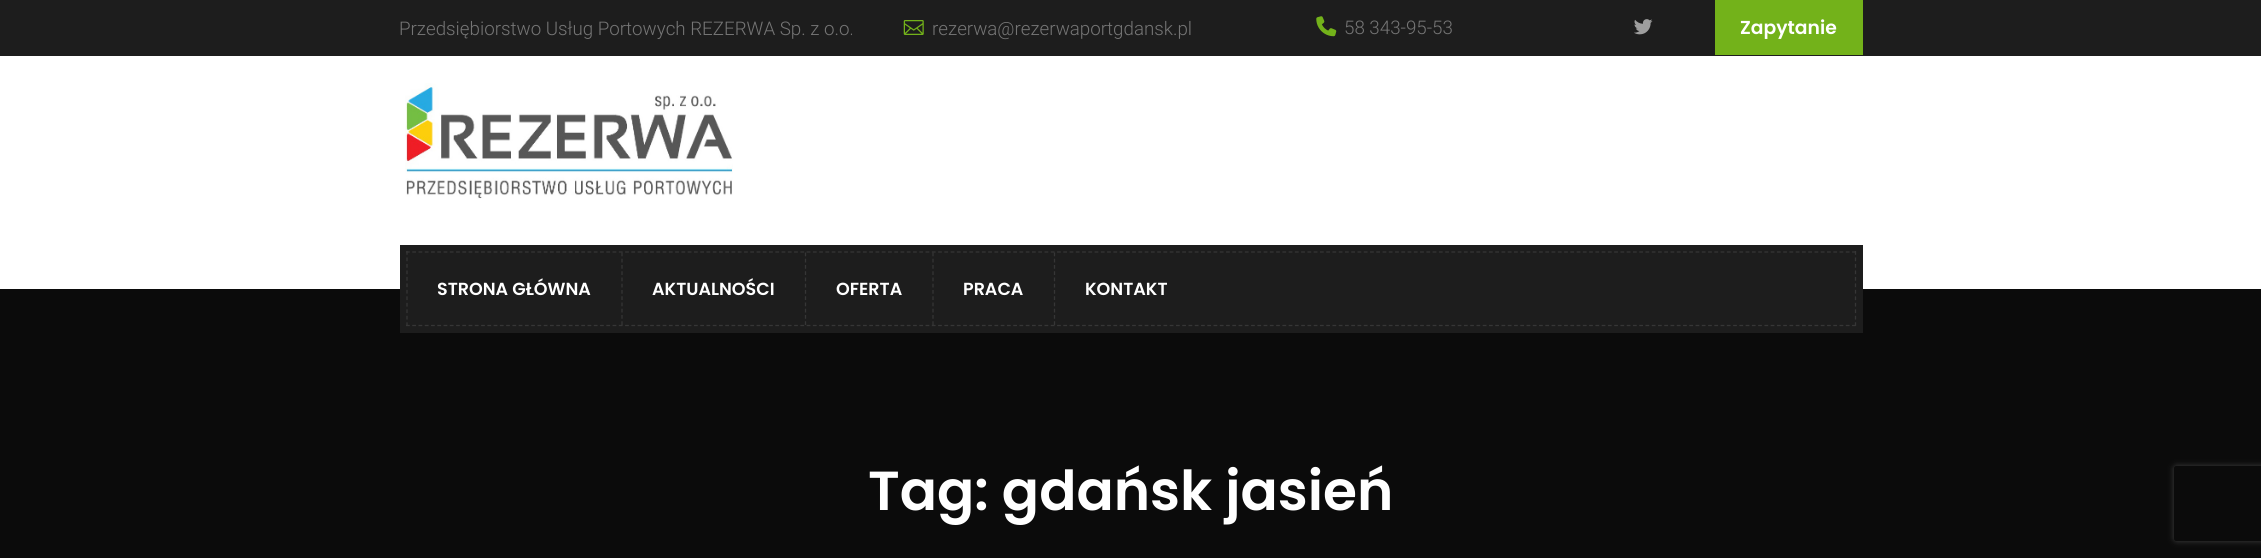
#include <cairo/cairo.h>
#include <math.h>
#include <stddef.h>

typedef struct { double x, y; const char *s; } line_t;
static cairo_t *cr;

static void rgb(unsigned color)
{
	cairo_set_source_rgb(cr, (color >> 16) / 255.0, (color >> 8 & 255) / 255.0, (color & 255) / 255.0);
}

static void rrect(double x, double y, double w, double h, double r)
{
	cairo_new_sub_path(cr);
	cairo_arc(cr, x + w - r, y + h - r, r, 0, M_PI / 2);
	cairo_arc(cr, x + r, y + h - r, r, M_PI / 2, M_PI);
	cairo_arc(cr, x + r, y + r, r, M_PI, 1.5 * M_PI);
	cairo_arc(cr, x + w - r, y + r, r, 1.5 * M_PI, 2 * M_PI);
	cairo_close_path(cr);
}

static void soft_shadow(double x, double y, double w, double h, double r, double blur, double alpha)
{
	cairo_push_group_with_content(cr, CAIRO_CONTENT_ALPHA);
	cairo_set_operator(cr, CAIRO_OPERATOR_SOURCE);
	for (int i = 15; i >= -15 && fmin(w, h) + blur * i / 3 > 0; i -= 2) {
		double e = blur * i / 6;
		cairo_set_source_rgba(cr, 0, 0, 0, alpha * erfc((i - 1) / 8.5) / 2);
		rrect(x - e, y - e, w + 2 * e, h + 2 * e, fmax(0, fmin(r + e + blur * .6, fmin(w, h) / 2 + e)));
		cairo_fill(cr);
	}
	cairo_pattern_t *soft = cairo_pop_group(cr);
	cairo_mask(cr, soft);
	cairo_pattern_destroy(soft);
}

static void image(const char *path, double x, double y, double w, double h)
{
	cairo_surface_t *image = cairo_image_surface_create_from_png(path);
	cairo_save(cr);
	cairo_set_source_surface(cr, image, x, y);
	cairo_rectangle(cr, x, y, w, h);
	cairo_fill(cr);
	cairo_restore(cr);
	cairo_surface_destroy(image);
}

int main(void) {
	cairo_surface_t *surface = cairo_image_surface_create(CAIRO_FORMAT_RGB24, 2261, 558);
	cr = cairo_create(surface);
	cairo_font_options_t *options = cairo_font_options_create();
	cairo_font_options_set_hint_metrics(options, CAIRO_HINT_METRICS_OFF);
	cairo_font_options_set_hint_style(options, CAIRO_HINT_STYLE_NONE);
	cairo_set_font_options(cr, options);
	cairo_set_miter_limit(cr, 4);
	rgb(0xffffff);
	cairo_paint(cr);
	rgb(0x1d1d1d);
	cairo_rectangle(cr, 0, 0, 2261, 56);
	cairo_fill(cr);
	image("img/1.png", 903, 20, 21, 15);
	image("img/2.png", 1316, 16, 21, 21);
	image("img/3.png", 1634, 19, 19, 16);
	rgb(0x73b21a);
	cairo_rectangle(cr, 1715, 0, 148, 55);
	cairo_fill(cr);
	image("img/4.png", 405, 83, 328, 116);
	rgb(0x0b0b0b);
	cairo_rectangle(cr, 0, 289, 2261, 269);
	cairo_fill(cr);
	rgb(0x1d1d1d);
	cairo_rectangle(cr, 400, 245, 1463, 88);
	cairo_fill(cr);
	cairo_new_path(cr);
	cairo_move_to(cr, 406, 252);
	cairo_line_to(cr, 1856, 252);
	rgb(0x363636);
	cairo_set_line_width(cr, 1.2);
	cairo_set_dash(cr, (double[]){3.75, 2.51}, 2, 0);
	cairo_stroke(cr);
	cairo_new_path(cr);
	cairo_move_to(cr, 1855.5, 251);
	cairo_line_to(cr, 1855.5, 326);
	cairo_set_dash(cr, (double[]){3.75, 2.73}, 2, 0);
	cairo_stroke(cr);
	cairo_new_path(cr);
	cairo_move_to(cr, 406, 325.5);
	cairo_line_to(cr, 1856, 325.5);
	cairo_set_dash(cr, (double[]){3.75, 2.51}, 2, 0);
	cairo_stroke(cr);
	cairo_new_path(cr);
	cairo_move_to(cr, 407, 251);
	cairo_line_to(cr, 407, 326);
	cairo_set_dash(cr, (double[]){3.75, 2.73}, 2, 0);
	cairo_stroke(cr);
	cairo_new_path(cr);
	cairo_move_to(cr, 622, 252.5);
	cairo_line_to(cr, 622, 325);
	cairo_set_dash(cr, (double[]){3.75, 2.5}, 2, 0);
	cairo_stroke(cr);
	cairo_new_path(cr);
	cairo_move_to(cr, 805.5, 252.5);
	cairo_line_to(cr, 805.5, 325);
	cairo_stroke(cr);
	cairo_new_path(cr);
	cairo_move_to(cr, 933, 252.5);
	cairo_line_to(cr, 933, 325);
	cairo_stroke(cr);
	cairo_new_path(cr);
	cairo_move_to(cr, 1054.5, 252.5);
	cairo_line_to(cr, 1054.5, 325);
	cairo_stroke(cr);
	cairo_save(cr);
	cairo_set_fill_rule(cr, CAIRO_FILL_RULE_EVEN_ODD);
	cairo_new_path(cr);
	cairo_move_to(cr, 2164, 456);
	cairo_line_to(cr, 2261, 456);
	cairo_line_to(cr, 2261, 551);
	cairo_line_to(cr, 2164, 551);
	cairo_close_path(cr);
	cairo_move_to(cr, 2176.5, 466);
	cairo_line_to(cr, 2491.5, 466);
	cairo_curve_to(cr, 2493, 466, 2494, 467, 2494, 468.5);
	cairo_line_to(cr, 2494, 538.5);
	cairo_curve_to(cr, 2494, 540, 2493, 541, 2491.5, 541);
	cairo_line_to(cr, 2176.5, 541);
	cairo_curve_to(cr, 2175, 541, 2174, 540, 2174, 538.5);
	cairo_line_to(cr, 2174, 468.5);
	cairo_curve_to(cr, 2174, 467, 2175, 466, 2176.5, 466);
	cairo_close_path(cr);
	cairo_clip(cr);
	rgb(0x404040);
	soft_shadow(2174, 466, 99, 75, 2.5, 3, 1);
	cairo_restore(cr);
	cairo_select_font_face(cr, "Roboto Light", CAIRO_FONT_SLANT_NORMAL, CAIRO_FONT_WEIGHT_NORMAL);
	cairo_set_font_size(cr, 18.75);
	rgb(0x757575);
	{
		static const line_t items[] = {
			{399, 35, "Przedsiębiorstwo Usług Portowych REZERWA Sp. z o.o."},
			{932, 35, "rezerwa@rezerwaportgdansk.pl"},
			{1344, 34, "58 343-95-53"},
		};
		for (size_t i = 0; i < sizeof items / sizeof *items; i++) {
			cairo_move_to(cr, items[i].x, items[i].y);
			cairo_show_text(cr, items[i].s);
		}
	}
	cairo_select_font_face(cr, "Poppins SemiBold", CAIRO_FONT_SLANT_NORMAL, CAIRO_FONT_WEIGHT_NORMAL);
	rgb(0xffffff);
	cairo_move_to(cr, 1740, 34);
	cairo_show_text(cr, "Zapytanie");
	cairo_set_font_size(cr, 17.5);
	{
		static const line_t items[] = {
			{437, 295, "STRONA GŁÓWNA"},
			{652, 295, "AKTUALNOŚCI"},
			{836, 295, "OFERTA"},
			{963, 295, "PRACA"},
			{1085, 295, "KONTAKT"},
		};
		for (size_t i = 0; i < sizeof items / sizeof *items; i++) {
			cairo_move_to(cr, items[i].x, items[i].y);
			cairo_show_text(cr, items[i].s);
		}
	}
	cairo_set_font_size(cr, 55);
	cairo_move_to(cr, 868, 510);
	cairo_show_text(cr, "Tag: gdańsk jasień");
	cairo_surface_write_to_png(surface, "page.png");
	cairo_font_options_destroy(options);
	cairo_destroy(cr);
	cairo_surface_destroy(surface);
	return 0;
}
